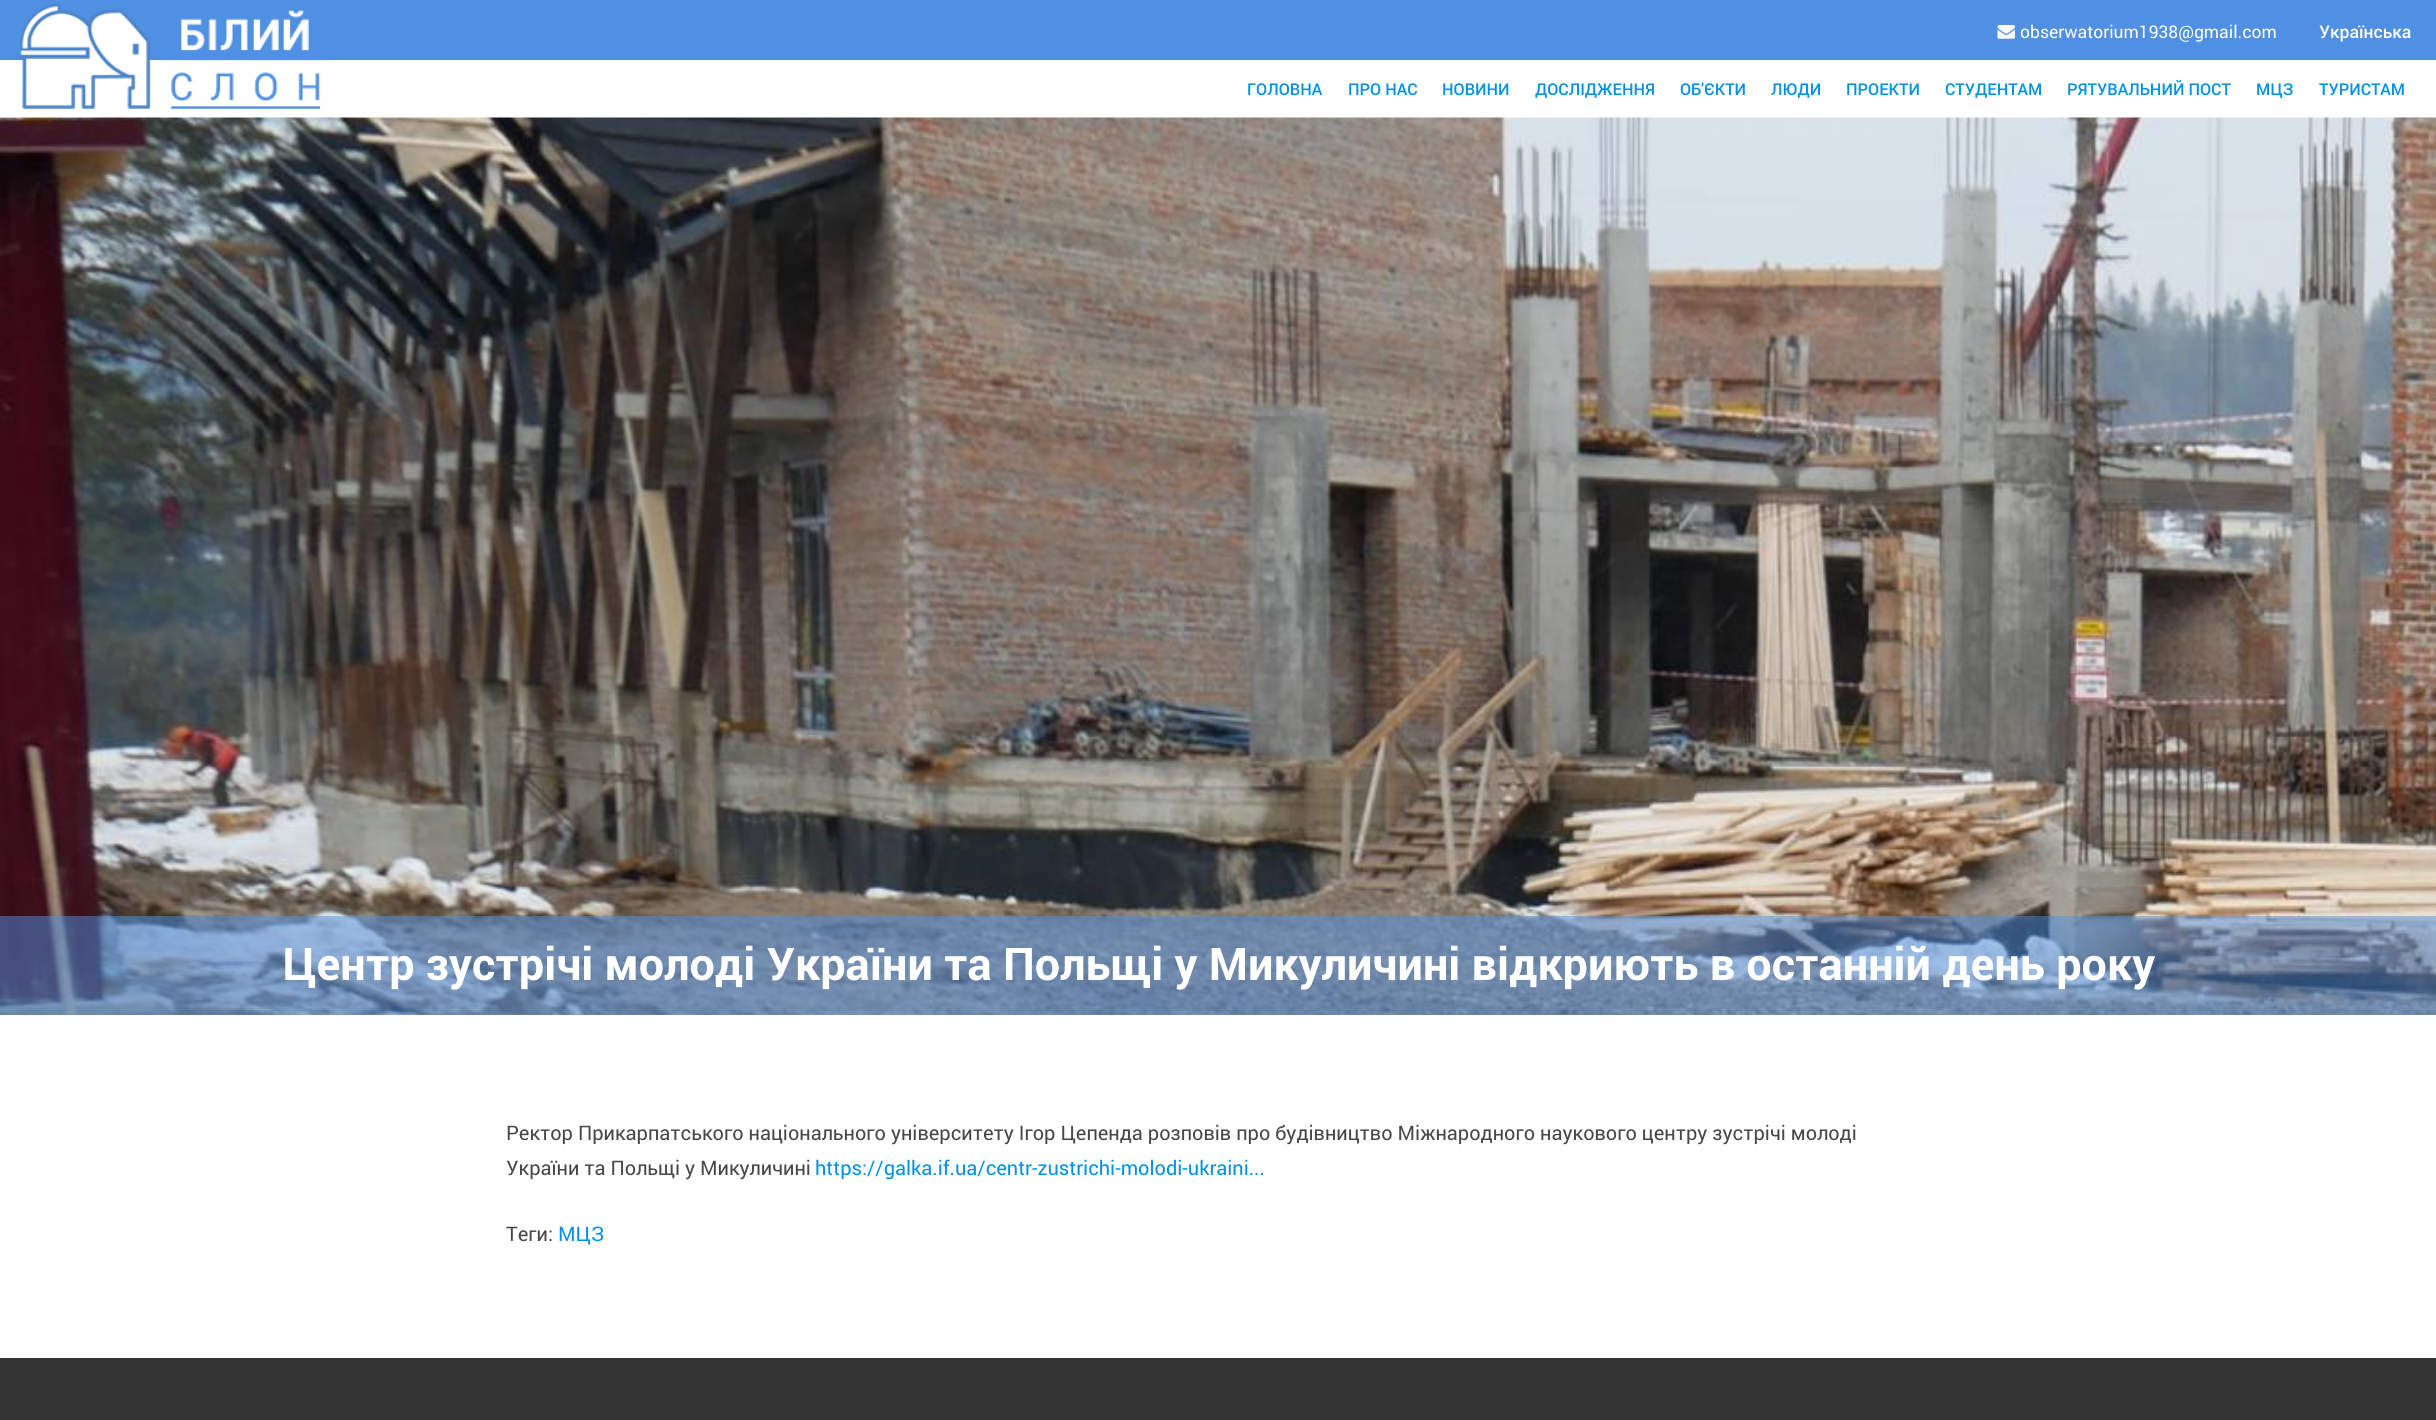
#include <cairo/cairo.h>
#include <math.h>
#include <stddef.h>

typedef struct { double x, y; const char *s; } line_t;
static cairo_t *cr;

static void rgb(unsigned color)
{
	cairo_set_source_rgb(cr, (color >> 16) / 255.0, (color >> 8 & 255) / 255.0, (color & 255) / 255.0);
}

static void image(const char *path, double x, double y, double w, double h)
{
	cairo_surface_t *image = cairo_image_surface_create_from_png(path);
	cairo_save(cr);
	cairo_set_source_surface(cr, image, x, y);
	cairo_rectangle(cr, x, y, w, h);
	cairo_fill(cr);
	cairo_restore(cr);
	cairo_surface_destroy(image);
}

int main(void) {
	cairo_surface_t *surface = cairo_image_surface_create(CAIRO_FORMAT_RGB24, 2436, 1420);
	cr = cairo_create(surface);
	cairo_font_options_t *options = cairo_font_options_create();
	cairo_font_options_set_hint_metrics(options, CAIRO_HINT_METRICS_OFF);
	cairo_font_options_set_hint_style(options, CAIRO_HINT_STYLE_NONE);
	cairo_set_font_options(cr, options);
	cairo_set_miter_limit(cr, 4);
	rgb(0xffffff);
	cairo_paint(cr);
	rgb(0x5090e2);
	cairo_rectangle(cr, 0, 0, 2436, 60);
	cairo_fill(cr);
	image("img/1.png", 1997, 25, 18, 14);
	image("img/2.png", 18, 3, 314, 106);
	image("img/3.png", 0, 117, 2436, 898);
	cairo_set_source_rgba(cr, 0.314, 0.565, 0.886, 0.5);
	cairo_rectangle(cr, 0, 916, 2436, 99);
	cairo_fill(cr);
	rgb(0x333333);
	cairo_rectangle(cr, 0, 1358, 2436, 62);
	cairo_fill(cr);
	cairo_select_font_face(cr, "Roboto", CAIRO_FONT_SLANT_NORMAL, CAIRO_FONT_WEIGHT_NORMAL);
	cairo_set_font_size(cr, 17.5);
	rgb(0xffffff);
	cairo_move_to(cr, 2020, 38);
	cairo_show_text(cr, "obserwatorium1938@gmail.com");
	cairo_select_font_face(cr, "Roboto Medium", CAIRO_FONT_SLANT_NORMAL, CAIRO_FONT_WEIGHT_NORMAL);
	cairo_move_to(cr, 2319, 38);
	cairo_show_text(cr, "Українська");
	cairo_set_font_size(cr, 16.25);
	rgb(0x0091e5);
	{
		static const line_t items[] = {
			{1247, 95, "ГОЛОВНА"},
			{1348, 95, "ПРО НАС"},
			{1442, 95, "НОВИНИ"},
			{1535, 95, "ДОСЛІДЖЕННЯ"},
			{1680, 95, "ОБ'ЄКТИ"},
			{1771, 95, "ЛЮДИ"},
			{1846, 95, "ПРОЕКТИ"},
			{1945, 95, "СТУДЕНТАМ"},
			{2067, 95, "РЯТУВАЛЬНИЙ ПОСТ"},
			{2256, 95, "МЦЗ"},
			{2319, 95, "ТУРИСТАМ"},
		};
		for (size_t i = 0; i < sizeof items / sizeof *items; i++) {
			cairo_move_to(cr, items[i].x, items[i].y);
			cairo_show_text(cr, items[i].s);
		}
	}
	cairo_select_font_face(cr, "Roboto", CAIRO_FONT_SLANT_NORMAL, CAIRO_FONT_WEIGHT_BOLD);
	cairo_set_font_size(cr, 45);
	rgb(0xffffff);
	cairo_move_to(cr, 282, 980);
	cairo_show_text(cr, "Центр зустрічі молоді України та Польщі у Микуличині відкриють в останній день року");
	cairo_select_font_face(cr, "Roboto", CAIRO_FONT_SLANT_NORMAL, CAIRO_FONT_WEIGHT_NORMAL);
	cairo_set_font_size(cr, 20);
	rgb(0x474747);
	cairo_move_to(cr, 506, 1140);
	cairo_show_text(cr, "Ректор Прикарпатського національного університету Ігор Цепенда розповів про будівництво Міжнародного наукового центру зустрічі молоді");
	cairo_move_to(cr, 506, 1175);
	cairo_show_text(cr, "України та Польщі у Микуличині");
	rgb(0x0091e5);
	cairo_move_to(cr, 815, 1175);
	cairo_show_text(cr, "https://galka.if.ua/centr-zustrichi-molodi-ukraini...");
	rgb(0x474747);
	cairo_move_to(cr, 506, 1241);
	cairo_show_text(cr, "Теги:");
	rgb(0x0091e5);
	cairo_move_to(cr, 558, 1241);
	cairo_show_text(cr, "МЦЗ");
	cairo_surface_write_to_png(surface, "page.png");
	cairo_font_options_destroy(options);
	cairo_destroy(cr);
	cairo_surface_destroy(surface);
	return 0;
}
